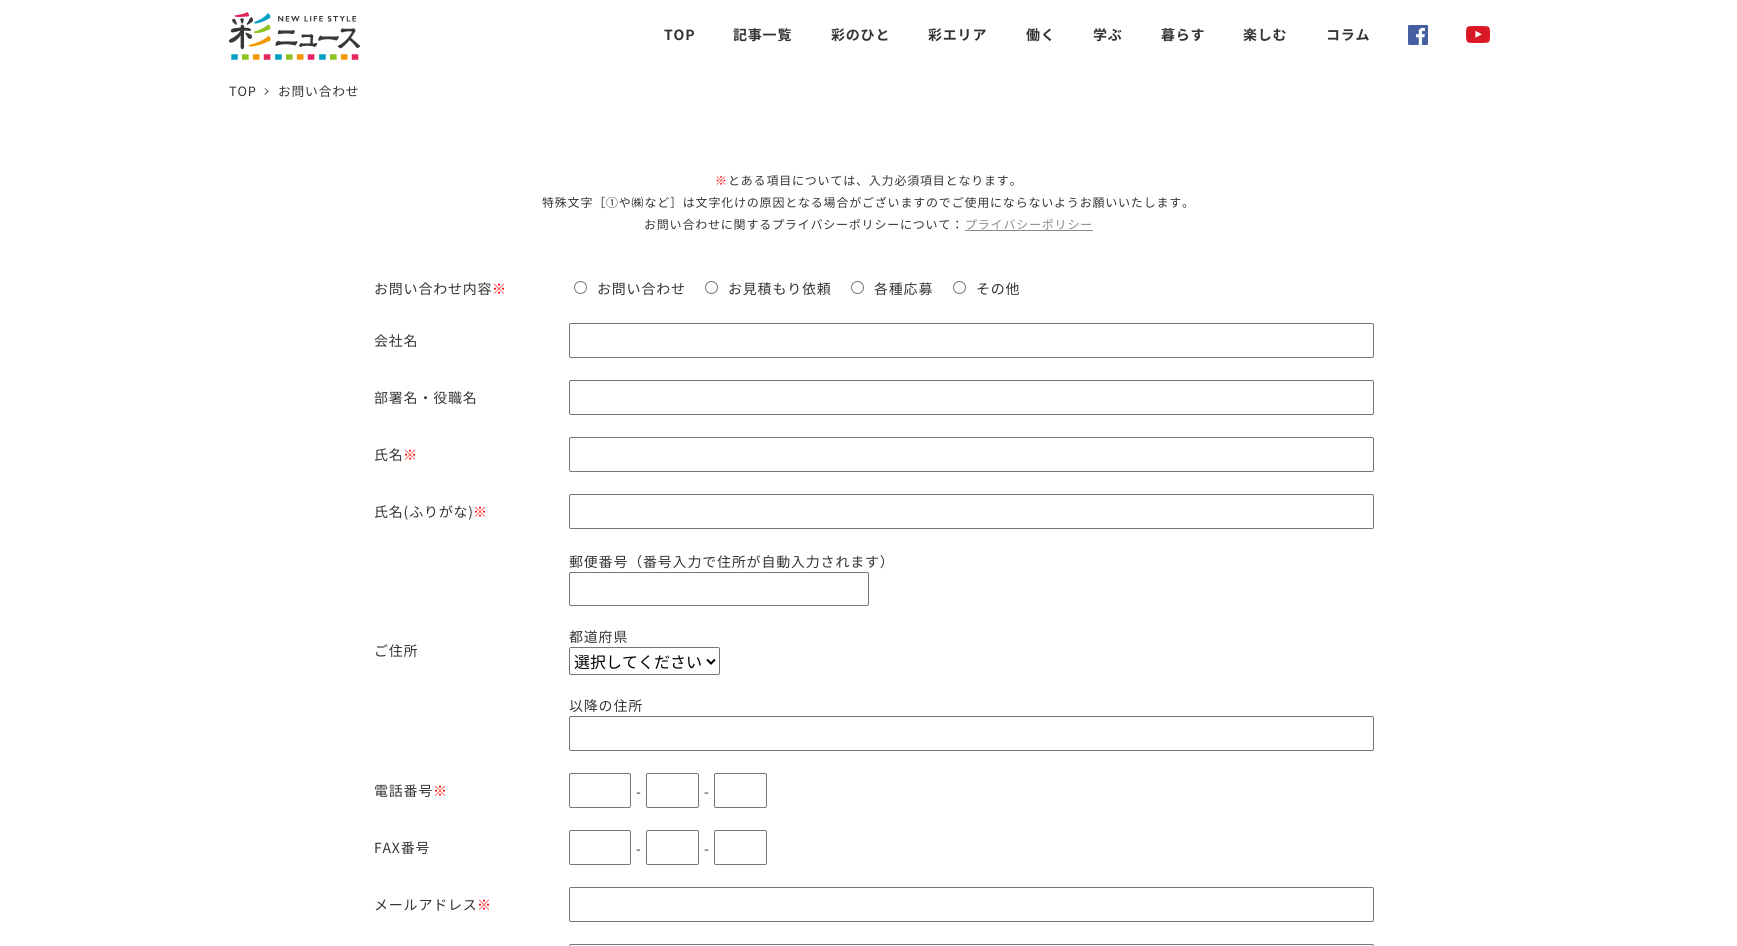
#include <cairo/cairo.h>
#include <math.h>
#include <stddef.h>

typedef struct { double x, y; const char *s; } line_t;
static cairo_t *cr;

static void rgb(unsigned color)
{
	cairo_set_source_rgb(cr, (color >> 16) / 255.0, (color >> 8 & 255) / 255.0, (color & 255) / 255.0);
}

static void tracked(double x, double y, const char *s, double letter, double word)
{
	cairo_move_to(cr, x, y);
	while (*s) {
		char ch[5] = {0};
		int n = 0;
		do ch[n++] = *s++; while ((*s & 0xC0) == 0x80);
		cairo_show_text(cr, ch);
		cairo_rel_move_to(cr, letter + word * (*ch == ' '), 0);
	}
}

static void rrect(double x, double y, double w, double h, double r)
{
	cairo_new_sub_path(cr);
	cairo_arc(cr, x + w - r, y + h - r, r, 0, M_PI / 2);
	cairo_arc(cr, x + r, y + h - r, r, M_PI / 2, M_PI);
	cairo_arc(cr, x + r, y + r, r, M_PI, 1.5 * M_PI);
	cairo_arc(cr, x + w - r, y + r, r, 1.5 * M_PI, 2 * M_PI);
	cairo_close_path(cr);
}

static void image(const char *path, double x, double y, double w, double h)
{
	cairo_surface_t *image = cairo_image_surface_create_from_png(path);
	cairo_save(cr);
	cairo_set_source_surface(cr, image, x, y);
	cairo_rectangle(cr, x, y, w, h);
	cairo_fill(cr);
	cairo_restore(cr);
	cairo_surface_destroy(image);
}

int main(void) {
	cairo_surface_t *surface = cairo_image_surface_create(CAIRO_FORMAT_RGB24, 1737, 946);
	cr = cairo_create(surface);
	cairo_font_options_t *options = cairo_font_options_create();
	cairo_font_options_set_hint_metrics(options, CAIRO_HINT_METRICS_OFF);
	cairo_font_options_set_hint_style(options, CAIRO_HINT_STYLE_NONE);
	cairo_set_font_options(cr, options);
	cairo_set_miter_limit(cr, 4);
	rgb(0xffffff);
	cairo_paint(cr);
	image("img/1.png", 229, 12, 131, 48);
	image("img/2.png", 1408, 25, 20, 20);
	image("img/3.png", 1466, 26, 24, 17);
	rgb(0x333333);
	cairo_new_path(cr);
	cairo_move_to(cr, 265, 88);
	cairo_line_to(cr, 268.5, 91.5);
	cairo_line_to(cr, 268, 92);
	cairo_line_to(cr, 264.5, 88.5);
	cairo_close_path(cr);
	cairo_fill(cr);
	cairo_new_path(cr);
	cairo_move_to(cr, 268, 90.5);
	cairo_line_to(cr, 268.5, 91.5);
	cairo_line_to(cr, 265, 95);
	cairo_line_to(cr, 264.5, 94.5);
	cairo_close_path(cr);
	cairo_fill(cr);
	rgb(0x898989);
	cairo_rectangle(cr, 965, 230, 128, 1);
	cairo_fill(cr);
	cairo_arc(cr, 580.5, 287.5, 6, 0, 2 * M_PI);
	rgb(0x767676);
	cairo_set_line_width(cr, 1);
	cairo_stroke(cr);
	cairo_arc(cr, 711.5, 287.5, 6, 0, 2 * M_PI);
	cairo_stroke(cr);
	cairo_arc(cr, 857.5, 287.5, 6, 0, 2 * M_PI);
	cairo_stroke(cr);
	cairo_arc(cr, 959.5, 287.5, 6, 0, 2 * M_PI);
	cairo_stroke(cr);
	rrect(569.5, 323.5, 804, 34, 1.5);
	cairo_stroke(cr);
	rrect(569.5, 380.5, 804, 34, 1.5);
	cairo_stroke(cr);
	rrect(569.5, 437.5, 804, 34, 1.5);
	cairo_stroke(cr);
	rrect(569.5, 494.5, 804, 34, 1.5);
	cairo_stroke(cr);
	rrect(569.5, 572.5, 299, 33, 1.5);
	cairo_stroke(cr);
	rrect(569.5, 647.5, 150, 27, 1.5);
	cairo_stroke(cr);
	cairo_new_path(cr);
	cairo_move_to(cr, 707, 659.5);
	cairo_line_to(cr, 711, 663.5);
	cairo_line_to(cr, 715, 659.5);
	rgb(0x000000);
	cairo_set_line_width(cr, 2);
	cairo_stroke(cr);
	rrect(569.5, 716.5, 804, 34, 1.5);
	rgb(0x767676);
	cairo_set_line_width(cr, 1);
	cairo_stroke(cr);
	rrect(569.5, 773.5, 61, 34, 1.5);
	cairo_stroke(cr);
	rrect(646.5, 773.5, 52, 34, 1.5);
	cairo_stroke(cr);
	rrect(714.5, 773.5, 52, 34, 1.5);
	cairo_stroke(cr);
	rrect(569.5, 830.5, 61, 34, 1.5);
	cairo_stroke(cr);
	rrect(646.5, 830.5, 52, 34, 1.5);
	cairo_stroke(cr);
	rrect(714.5, 830.5, 52, 34, 1.5);
	cairo_stroke(cr);
	rrect(569.5, 887.5, 804, 34, 1.5);
	cairo_stroke(cr);
	rrect(569.5, 944.5, 804, 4, 1.5);
	cairo_stroke(cr);
	cairo_select_font_face(cr, "Noto Sans JP", CAIRO_FONT_SLANT_NORMAL, CAIRO_FONT_WEIGHT_BOLD);
	cairo_set_font_size(cr, 14);
	rgb(0x333333);
	{
		static const line_t items[] = {
			{664, 40, "TOP"},
			{733, 40, "記事一覧"},
			{831, 40, "彩のひと"},
			{928, 40, "彩エリア"},
			{1026, 40, "働く"},
			{1093, 40, "学ぶ"},
			{1161, 40, "暮らす"},
			{1243, 40, "楽しむ"},
			{1326, 40, "コラム"},
		};
		for (size_t i = 0; i < sizeof items / sizeof *items; i++) {
			tracked(items[i].x, items[i].y, items[i].s, 0.8, 0);
		}
	}
	cairo_select_font_face(cr, "Noto Sans JP", CAIRO_FONT_SLANT_NORMAL, CAIRO_FONT_WEIGHT_NORMAL);
	cairo_set_font_size(cr, 12.75);
	tracked(229, 96, "TOP", 0.8, 0);
	tracked(278, 96, "お問い合わせ", 0.8, 0);
	cairo_set_font_size(cr, 12);
	rgb(0xff0000);
	tracked(715, 185, "※", 0.8, 0);
	rgb(0x333333);
	{
		static const line_t items[] = {
			{728, 185, "とある項目については、入力必須項目となります。"},
			{542, 207, "特殊文字［①や㈱など］は文字化けの原因となる場合がございますのでご使用にならないようお願いいたします。"},
			{644, 229, "お問い合わせに関するプライバシーポリシーについて："},
		};
		for (size_t i = 0; i < sizeof items / sizeof *items; i++) {
			tracked(items[i].x, items[i].y, items[i].s, 0.8, 0);
		}
	}
	rgb(0x898989);
	tracked(965, 229, "プライバシーポリシー", 0.8, 0);
	cairo_set_font_size(cr, 14);
	rgb(0x333333);
	tracked(374, 294, "お問い合わせ内容", 0.8, 0);
	rgb(0xff0000);
	tracked(492, 294, "※", 0.8, 0);
	rgb(0x333333);
	{
		static const line_t items[] = {
			{597, 294, "お問い合わせ"},
			{728, 294, "お見積もり依頼"},
			{874, 294, "各種応募"},
			{976, 294, "その他"},
			{374, 346, "会社名"},
			{374, 403, "部署名・役職名"},
			{374, 460, "氏名"},
		};
		for (size_t i = 0; i < sizeof items / sizeof *items; i++) {
			tracked(items[i].x, items[i].y, items[i].s, 0.8, 0);
		}
	}
	rgb(0xff0000);
	tracked(403, 460, "※", 0.8, 0);
	rgb(0x333333);
	tracked(374, 517, "氏名(ふりがな)", 0.8, 0);
	rgb(0xff0000);
	tracked(473, 517, "※", 0.8, 0);
	rgb(0x333333);
	{
		static const line_t items[] = {
			{374, 656, "ご住所"},
			{569, 567, "郵便番号（番号入力で住所が自動入力されます）"},
			{569, 642, "都道府県"},
		};
		for (size_t i = 0; i < sizeof items / sizeof *items; i++) {
			tracked(items[i].x, items[i].y, items[i].s, 0.8, 0);
		}
	}
	cairo_set_font_size(cr, 16);
	rgb(0x000000);
	cairo_move_to(cr, 574, 668);
	cairo_show_text(cr, "選択してください");
	cairo_set_font_size(cr, 14);
	rgb(0x333333);
	tracked(569, 711, "以降の住所", 0.8, 0);
	tracked(374, 796, "電話番号", 0.8, 0);
	rgb(0xff0000);
	tracked(433, 796, "※", 0.8, 0);
	rgb(0x333333);
	{
		static const line_t items[] = {
			{636, 797, "-"},
			{704, 797, "-"},
			{374, 853, "FAX番号"},
			{636, 854, "-"},
			{704, 854, "-"},
			{374, 910, "メールアドレス"},
		};
		for (size_t i = 0; i < sizeof items / sizeof *items; i++) {
			tracked(items[i].x, items[i].y, items[i].s, 0.8, 0);
		}
	}
	rgb(0xff0000);
	tracked(477, 910, "※", 0.8, 0);
	cairo_surface_write_to_png(surface, "page.png");
	cairo_font_options_destroy(options);
	cairo_destroy(cr);
	cairo_surface_destroy(surface);
	return 0;
}
